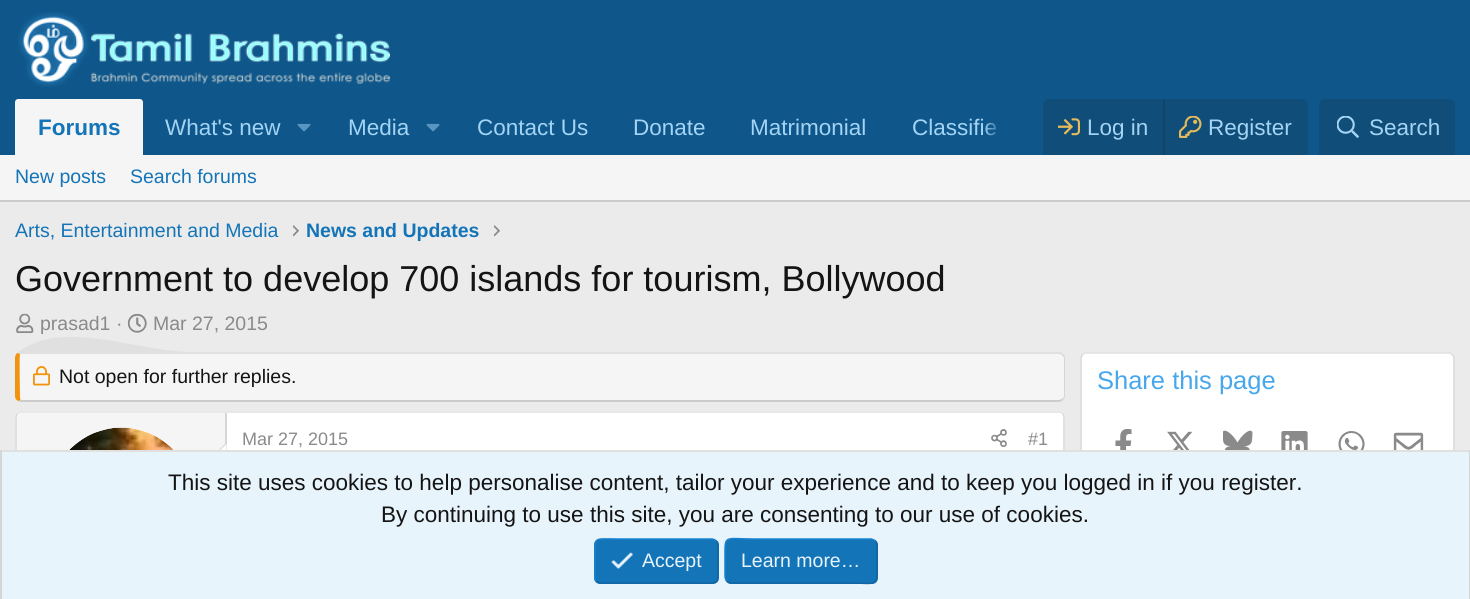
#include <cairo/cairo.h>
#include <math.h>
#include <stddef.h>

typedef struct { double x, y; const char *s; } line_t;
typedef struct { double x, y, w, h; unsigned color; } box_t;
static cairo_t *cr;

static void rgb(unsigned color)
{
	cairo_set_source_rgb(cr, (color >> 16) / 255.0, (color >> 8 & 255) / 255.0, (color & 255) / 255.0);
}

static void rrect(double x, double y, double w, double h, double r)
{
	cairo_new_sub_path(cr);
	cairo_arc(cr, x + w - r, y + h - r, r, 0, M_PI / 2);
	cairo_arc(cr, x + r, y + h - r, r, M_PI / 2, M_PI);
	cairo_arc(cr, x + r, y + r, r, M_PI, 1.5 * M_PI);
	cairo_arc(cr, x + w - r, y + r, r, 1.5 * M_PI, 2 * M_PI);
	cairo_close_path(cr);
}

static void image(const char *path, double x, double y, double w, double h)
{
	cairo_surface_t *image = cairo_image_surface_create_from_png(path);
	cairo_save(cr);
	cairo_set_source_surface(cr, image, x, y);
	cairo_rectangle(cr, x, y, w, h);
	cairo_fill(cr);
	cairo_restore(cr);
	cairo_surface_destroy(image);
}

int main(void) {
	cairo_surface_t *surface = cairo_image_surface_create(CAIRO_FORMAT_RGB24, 1470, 599);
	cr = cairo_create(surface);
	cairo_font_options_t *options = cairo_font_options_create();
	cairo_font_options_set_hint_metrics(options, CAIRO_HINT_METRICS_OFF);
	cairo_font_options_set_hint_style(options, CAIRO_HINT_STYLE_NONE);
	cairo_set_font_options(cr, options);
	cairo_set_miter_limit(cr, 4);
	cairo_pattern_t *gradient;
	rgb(0xebebeb);
	cairo_paint(cr);
	rgb(0x0f578a);
	cairo_rectangle(cr, 0, 0, 1470, 155);
	cairo_fill(cr);
	image("img/1.png", 18, 12, 372, 75);
	rgb(0xf5f5f5);
	cairo_new_path(cr);
	cairo_move_to(cr, 18, 99);
	cairo_line_to(cr, 140, 99);
	cairo_curve_to(cr, 141.5, 99, 143, 100.5, 143, 102);
	cairo_line_to(cr, 143, 155);
	cairo_line_to(cr, 15, 155);
	cairo_line_to(cr, 15, 102);
	cairo_curve_to(cr, 15, 100.5, 16.5, 99, 18, 99);
	cairo_close_path(cr);
	cairo_fill(cr);
	image("img/2.png", 297, 123, 14, 9);
	image("img/2.png", 426, 123, 14, 9);
	rgb(0x104d78);
	cairo_new_path(cr);
	cairo_move_to(cr, 1049, 99);
	cairo_line_to(cr, 1302, 99);
	cairo_curve_to(cr, 1305.5, 99, 1308, 101.5, 1308, 105);
	cairo_line_to(cr, 1308, 155);
	cairo_line_to(cr, 1043, 155);
	cairo_line_to(cr, 1043, 105);
	cairo_curve_to(cr, 1043, 101.5, 1045.5, 99, 1049, 99);
	cairo_close_path(cr);
	cairo_fill(cr);
	image("img/3.png", 1058, 118, 22, 18);
	rgb(0x114469);
	cairo_rectangle(cr, 1163, 99, 2, 56);
	cairo_fill(cr);
	image("img/4.png", 1179, 116, 23, 22);
	rgb(0x104d78);
	cairo_new_path(cr);
	cairo_move_to(cr, 1325, 99);
	cairo_line_to(cr, 1449, 99);
	cairo_curve_to(cr, 1452.5, 99, 1455, 101.5, 1455, 105);
	cairo_line_to(cr, 1455, 155);
	cairo_line_to(cr, 1319, 155);
	cairo_line_to(cr, 1319, 105);
	cairo_curve_to(cr, 1319, 101.5, 1321.5, 99, 1325, 99);
	cairo_close_path(cr);
	cairo_fill(cr);
	image("img/5.png", 1337, 116, 22, 22);
	rgb(0xf5f5f5);
	cairo_rectangle(cr, 0, 155, 1470, 45);
	cairo_fill(cr);
	rgb(0xcccccc);
	cairo_rectangle(cr, 0, 200, 1470, 2);
	cairo_fill(cr);
	image("img/6.png", 293, 225, 6, 12);
	image("img/6.png", 494, 225, 6, 12);
	image("img/7.png", 16, 313, 18, 20);
	image("img/8.png", 127, 313, 20, 20);
	rgb(0xf5f5f5);
	cairo_new_path(cr);
	cairo_move_to(cr, 21, 354);
	cairo_line_to(cr, 1059, 354);
	cairo_curve_to(cr, 1061, 354, 1064, 356, 1064, 358);
	cairo_line_to(cr, 1064, 396);
	cairo_curve_to(cr, 1064, 398, 1061, 400, 1059, 400);
	cairo_line_to(cr, 21, 400);
	cairo_curve_to(cr, 20, 400, 20, 398, 20, 396);
	cairo_line_to(cr, 20, 358);
	cairo_curve_to(cr, 20, 356, 20, 354, 21, 354);
	cairo_close_path(cr);
	cairo_fill(cr);
	rgb(0xe0e0e0);
	cairo_new_path(cr);
	cairo_move_to(cr, 21, 354);
	cairo_line_to(cr, 20, 354);
	cairo_line_to(cr, 17, 353);
	cairo_curve_to(cr, 63, 317, 134, 352, 193, 352);
	cairo_line_to(cr, 1061, 352);
	cairo_line_to(cr, 1063, 354);
	cairo_line_to(cr, 1062, 355);
	cairo_line_to(cr, 1059, 354);
	cairo_close_path(cr);
	cairo_fill(cr);
	rgb(0xd6d6d6);
	cairo_new_path(cr);
	cairo_move_to(cr, 1065, 396);
	cairo_line_to(cr, 1065, 358);
	cairo_curve_to(cr, 1065, 357, 1064, 355, 1063, 354);
	cairo_line_to(cr, 1062, 355);
	cairo_curve_to(cr, 1063, 356, 1064, 357, 1064, 358);
	cairo_line_to(cr, 1064, 396);
	cairo_curve_to(cr, 1064, 397, 1063, 398, 1062, 399);
	cairo_line_to(cr, 1063, 400);
	cairo_curve_to(cr, 1064, 399, 1065, 398, 1065, 396);
	cairo_close_path(cr);
	cairo_fill(cr);
	rgb(0xcccccc);
	cairo_new_path(cr);
	cairo_move_to(cr, 21, 402);
	cairo_line_to(cr, 1059, 402);
	cairo_curve_to(cr, 1060, 402, 1062, 401, 1063, 400);
	cairo_line_to(cr, 1062, 399);
	cairo_line_to(cr, 1059, 400);
	cairo_line_to(cr, 21, 400);
	cairo_line_to(cr, 18, 401);
	cairo_close_path(cr);
	cairo_fill(cr);
	rgb(0xf2930d);
	cairo_new_path(cr);
	cairo_move_to(cr, 15, 358);
	cairo_line_to(cr, 15, 396);
	cairo_curve_to(cr, 15, 398, 16, 400, 18, 401);
	cairo_line_to(cr, 21, 400);
	cairo_curve_to(cr, 20, 400, 20, 397, 20, 396);
	cairo_curve_to(cr, 20, 391, 19, 356, 20, 354);
	cairo_line_to(cr, 17, 353);
	cairo_curve_to(cr, 16, 354, 15, 356, 15, 358);
	cairo_close_path(cr);
	cairo_fill(cr);
	image("img/9.png", 33, 366, 17, 20);
	rgb(0xffffff);
	rrect(15, 411, 1050, 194, 6);
	cairo_fill(cr);
	cairo_new_path(cr);
	cairo_move_to(cr, 17.5, 413.5);
	cairo_curve_to(cr, 18.5, 412.5, 19.5, 412, 21, 412);
	cairo_line_to(cr, 1059, 412);
	cairo_curve_to(cr, 1060.5, 412, 1061.5, 412.5, 1062.5, 413.5);
	rgb(0xe0e0e0);
	cairo_set_line_width(cr, 1.5);
	cairo_stroke(cr);
	cairo_new_path(cr);
	cairo_move_to(cr, 1062.5, 413.5);
	cairo_curve_to(cr, 1063.5, 414.5, 1064, 415.5, 1064, 417);
	cairo_line_to(cr, 1064, 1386);
	cairo_curve_to(cr, 1064, 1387.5, 1063.5, 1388.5, 1062.5, 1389.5);
	rgb(0xd6d6d6);
	cairo_stroke(cr);
	cairo_new_path(cr);
	cairo_move_to(cr, 17.5, 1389.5);
	cairo_curve_to(cr, 16.5, 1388.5, 16, 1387.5, 16, 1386);
	cairo_line_to(cr, 16, 417);
	cairo_curve_to(cr, 16, 415.5, 16.5, 414.5, 17.5, 413.5);
	cairo_stroke(cr);
	rgb(0xf5f5f5);
	cairo_new_path(cr);
	cairo_move_to(cr, 22, 413);
	cairo_line_to(cr, 227, 413);
	cairo_line_to(cr, 227, 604);
	cairo_line_to(cr, 22, 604);
	cairo_curve_to(cr, 19, 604, 17, 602, 17, 599);
	cairo_line_to(cr, 17, 418);
	cairo_curve_to(cr, 17, 415, 19, 413, 22, 413);
	cairo_close_path(cr);
	cairo_fill(cr);
	rgb(0xd6d6d6);
	cairo_rectangle(cr, 225, 413, 2, 37);
	cairo_fill(cr);
	rgb(0xffffff);
	cairo_arc(cr, 122, 500, 72, 0, 2 * M_PI);
	cairo_fill(cr);
	image("img/10.png", 69, 427, 105, 23);
	rgb(0xd6d6d6);
	cairo_new_path(cr);
	cairo_move_to(cr, 226.5, 442.5);
	cairo_line_to(cr, 226.5, 472.5);
	cairo_line_to(cr, 211.5, 457.5);
	cairo_close_path(cr);
	cairo_fill(cr);
	rgb(0xffffff);
	cairo_new_path(cr);
	cairo_move_to(cr, 226.5, 444);
	cairo_line_to(cr, 226.5, 471);
	cairo_line_to(cr, 213, 457.5);
	cairo_close_path(cr);
	cairo_fill(cr);
	image("img/11.png", 991, 429, 16, 18);
	rrect(1080, 353, 375, 177, 6);
	cairo_fill(cr);
	cairo_new_path(cr);
	cairo_move_to(cr, 1082.5, 355);
	cairo_curve_to(cr, 1083.5, 354, 1084.5, 353, 1086, 353);
	cairo_line_to(cr, 1449, 353);
	cairo_curve_to(cr, 1450.5, 353, 1451.5, 354, 1452.5, 355);
	rgb(0xe0e0e0);
	cairo_stroke(cr);
	cairo_new_path(cr);
	cairo_move_to(cr, 1452.5, 355);
	cairo_curve_to(cr, 1453.5, 356, 1454, 357, 1454, 358.5);
	cairo_line_to(cr, 1454, 523.5);
	cairo_curve_to(cr, 1454, 525, 1453.5, 526, 1452.5, 527);
	rgb(0xd6d6d6);
	cairo_stroke(cr);
	cairo_new_path(cr);
	cairo_move_to(cr, 1082.5, 527);
	cairo_curve_to(cr, 1081.5, 526, 1081, 525, 1081, 523.5);
	cairo_line_to(cr, 1081, 358.5);
	cairo_curve_to(cr, 1081, 357, 1081.5, 356, 1082.5, 355);
	cairo_stroke(cr);
	image("img/12.png", 1115, 429, 17, 21);
	image("img/13.png", 1167, 431, 26, 19);
	image("img/14.png", 1223, 430, 30, 20);
	image("img/15.png", 1281, 431, 27, 19);
	image("img/16.png", 1338, 431, 27, 19);
	image("img/17.png", 1393, 432, 31, 18);
	{
		static const box_t items[] = {
			{2, 452, 1467, 147, 0xe8f4fc},
			{0, 450, 1470, 2, 0xe0e0e0},
			{1469, 450, 1, 149, 0xd6d6d6},
			{0, 450, 2, 149, 0xd6d6d6},
		};
		for (size_t i = 0; i < sizeof items / sizeof *items; i++) {
			rgb(items[i].color);
			cairo_rectangle(cr, items[i].x, items[i].y, items[i].w, items[i].h);
			cairo_fill(cr);
		}
	}
	rgb(0x1474b8);
	rrect(594, 539, 125, 45, 6);
	cairo_fill(cr);
	cairo_new_path(cr);
	cairo_move_to(cr, 716, 541);
	cairo_curve_to(cr, 718.5, 543, 718, 547, 718, 550);
	cairo_line_to(cr, 718, 561);
	cairo_curve_to(cr, 718, 586.5, 721, 583, 694, 583);
	cairo_line_to(cr, 600, 583);
	cairo_curve_to(cr, 598.5, 582.5, 597.5, 582, 596.5, 581);
	rgb(0x1265a1);
	cairo_stroke(cr);
	cairo_new_path(cr);
	cairo_move_to(cr, 596.5, 581);
	cairo_curve_to(cr, 594, 579, 595, 575, 595, 572);
	cairo_line_to(cr, 595, 561);
	cairo_curve_to(cr, 595, 535.5, 591.5, 539, 619, 539);
	cairo_line_to(cr, 712.5, 539);
	cairo_curve_to(cr, 714, 539.5, 715, 540, 716, 541);
	rgb(0x1782cf);
	cairo_stroke(cr);
	image("img/18.png", 611, 552, 22, 17);
	rgb(0x1474b8);
	rrect(725, 539, 153, 45, 6);
	cairo_fill(cr);
	cairo_new_path(cr);
	cairo_move_to(cr, 875, 541);
	cairo_curve_to(cr, 877.5, 543, 877, 547, 877, 550);
	cairo_line_to(cr, 877, 561);
	cairo_curve_to(cr, 877, 588.5, 879.5, 583, 848, 583);
	cairo_line_to(cr, 730.5, 583);
	cairo_curve_to(cr, 729, 582.5, 728, 582, 727, 581);
	rgb(0x1265a1);
	cairo_stroke(cr);
	cairo_new_path(cr);
	cairo_move_to(cr, 727, 581);
	cairo_curve_to(cr, 724.5, 579, 725, 575, 725, 572);
	cairo_line_to(cr, 725, 561);
	cairo_curve_to(cr, 725, 533.5, 722.5, 539, 754, 539);
	cairo_line_to(cr, 871.5, 539);
	cairo_curve_to(cr, 873, 539.5, 874, 540, 875, 541);
	rgb(0x1782cf);
	cairo_stroke(cr);
	cairo_select_font_face(cr, "Liberation Sans", CAIRO_FONT_SLANT_NORMAL, CAIRO_FONT_WEIGHT_BOLD);
	cairo_set_font_size(cr, 22.5);
	rgb(0x1474b8);
	cairo_move_to(cr, 38, 135);
	cairo_show_text(cr, "Forums");
	cairo_select_font_face(cr, "Liberation Sans", CAIRO_FONT_SLANT_NORMAL, CAIRO_FONT_WEIGHT_NORMAL);
	rgb(0xa3d4f5);
	{
		static const line_t items[] = {
			{165, 135, "What's new"},
			{348, 135, "Media"},
			{477, 135, "Contact Us"},
			{633, 135, "Donate"},
			{750, 135, "Matrimonial"},
			{912, 135, "Classifie"},
		};
		for (size_t i = 0; i < sizeof items / sizeof *items; i++) {
			cairo_move_to(cr, items[i].x, items[i].y);
			cairo_show_text(cr, items[i].s);
		}
	}
	gradient = cairo_pattern_create_linear(983, 127, 1043, 127);
	cairo_pattern_add_color_stop_rgba(gradient, 0, 0.059, 0.341, 0.541, 0);
	cairo_pattern_add_color_stop_rgba(gradient, 0.33, 0.059, 0.341, 0.541, 1);
	cairo_set_source(cr, gradient);
	cairo_pattern_destroy(gradient);
	cairo_rectangle(cr, 985, 122, 11, 14);
	cairo_fill(cr);
	rgb(0xa3d4f5);
	{
		static const line_t items[] = {
			{1087, 135, "Log in"},
			{1208, 135, "Register"},
			{1369, 135, "Search"},
		};
		for (size_t i = 0; i < sizeof items / sizeof *items; i++) {
			cairo_move_to(cr, items[i].x, items[i].y);
			cairo_show_text(cr, items[i].s);
		}
	}
	cairo_set_font_size(cr, 19.5);
	rgb(0x1474b8);
	{
		static const line_t items[] = {
			{15, 183, "New posts"},
			{130, 183, "Search forums"},
			{15, 237, "Arts, Entertainment and Media"},
		};
		for (size_t i = 0; i < sizeof items / sizeof *items; i++) {
			cairo_move_to(cr, items[i].x, items[i].y);
			cairo_show_text(cr, items[i].s);
		}
	}
	cairo_select_font_face(cr, "Liberation Sans", CAIRO_FONT_SLANT_NORMAL, CAIRO_FONT_WEIGHT_BOLD);
	cairo_move_to(cr, 306, 237);
	cairo_show_text(cr, "News and Updates");
	cairo_select_font_face(cr, "Liberation Sans", CAIRO_FONT_SLANT_NORMAL, CAIRO_FONT_WEIGHT_NORMAL);
	cairo_set_font_size(cr, 36);
	rgb(0x141414);
	cairo_move_to(cr, 15, 291);
	cairo_show_text(cr, "Government to develop 700 islands for tourism, Bollywood");
	cairo_set_font_size(cr, 19.5);
	rgb(0x8a8a8a);
	cairo_move_to(cr, 40, 330);
	cairo_show_text(cr, "prasad1 ·");
	cairo_move_to(cr, 153, 330);
	cairo_show_text(cr, "Mar 27, 2015");
	rgb(0x141414);
	cairo_move_to(cr, 59, 383);
	cairo_show_text(cr, "Not open for further replies.");
	cairo_set_font_size(cr, 18);
	rgb(0x8a8a8a);
	cairo_move_to(cr, 242, 445);
	cairo_show_text(cr, "Mar 27, 2015");
	cairo_move_to(cr, 1028, 445);
	cairo_show_text(cr, "#1");
	cairo_set_font_size(cr, 25.5);
	rgb(0x47a7eb);
	cairo_move_to(cr, 1097, 389);
	cairo_show_text(cr, "Share this page");
	cairo_set_font_size(cr, 22.5);
	rgb(0x141414);
	cairo_move_to(cr, 168, 490);
	cairo_show_text(cr, "This site uses cookies to help personalise content, tailor your experience and to keep you logged in if you register.");
	cairo_move_to(cr, 381, 522);
	cairo_show_text(cr, "By continuing to use this site, you are consenting to our use of cookies.");
	cairo_set_font_size(cr, 19.5);
	rgb(0xe8f4fc);
	cairo_move_to(cr, 642, 567);
	cairo_show_text(cr, "Accept");
	cairo_move_to(cr, 741, 567);
	cairo_show_text(cr, "Learn more…");
	cairo_surface_write_to_png(surface, "page.png");
	cairo_font_options_destroy(options);
	cairo_destroy(cr);
	cairo_surface_destroy(surface);
	return 0;
}
